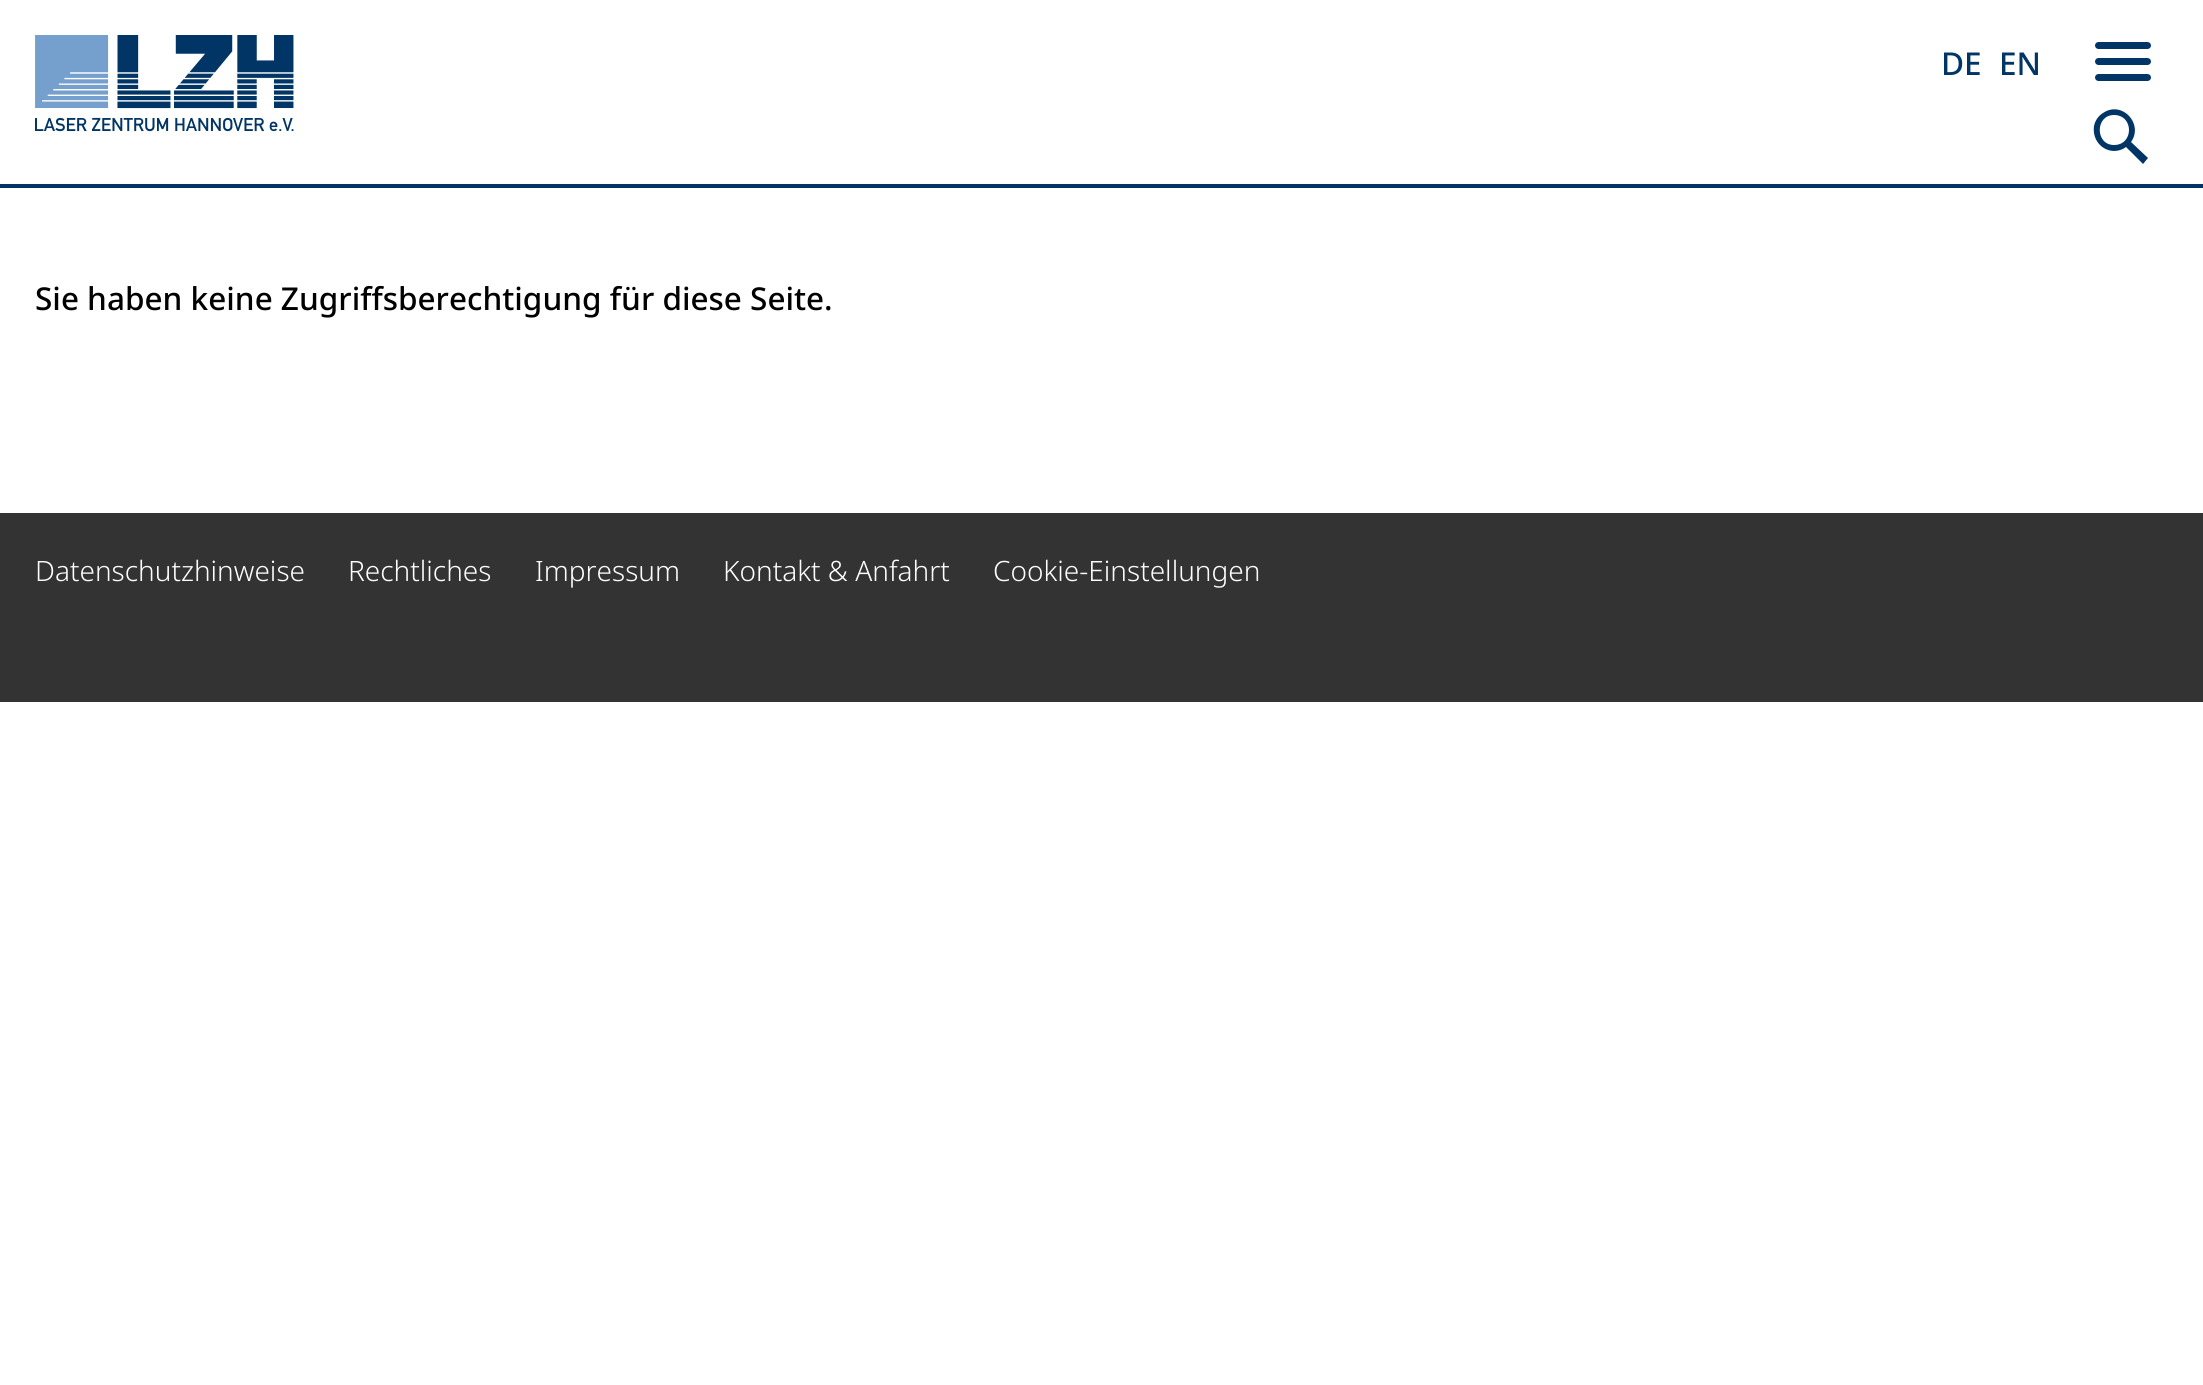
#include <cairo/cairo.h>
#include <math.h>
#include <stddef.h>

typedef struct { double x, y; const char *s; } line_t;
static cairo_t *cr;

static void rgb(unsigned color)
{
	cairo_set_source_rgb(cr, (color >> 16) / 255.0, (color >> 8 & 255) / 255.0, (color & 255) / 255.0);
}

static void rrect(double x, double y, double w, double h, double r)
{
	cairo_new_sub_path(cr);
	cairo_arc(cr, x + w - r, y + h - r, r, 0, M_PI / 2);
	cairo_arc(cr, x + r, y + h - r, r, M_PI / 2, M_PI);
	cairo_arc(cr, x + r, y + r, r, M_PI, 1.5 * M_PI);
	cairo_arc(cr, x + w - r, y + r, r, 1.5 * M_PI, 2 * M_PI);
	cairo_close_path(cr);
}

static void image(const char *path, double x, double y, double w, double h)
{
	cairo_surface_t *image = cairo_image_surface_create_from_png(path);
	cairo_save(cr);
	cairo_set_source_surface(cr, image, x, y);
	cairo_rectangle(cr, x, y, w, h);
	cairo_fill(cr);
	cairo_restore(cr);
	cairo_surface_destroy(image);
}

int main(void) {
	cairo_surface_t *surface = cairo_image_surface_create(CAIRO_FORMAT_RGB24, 2203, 1385);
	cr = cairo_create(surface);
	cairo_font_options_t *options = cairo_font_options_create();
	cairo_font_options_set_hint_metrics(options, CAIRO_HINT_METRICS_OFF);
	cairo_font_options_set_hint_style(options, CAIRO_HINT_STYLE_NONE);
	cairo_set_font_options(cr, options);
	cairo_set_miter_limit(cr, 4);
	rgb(0xffffff);
	cairo_paint(cr);
	image("img/1.png", 35, 35, 259, 97);
	rgb(0x003565);
	rrect(2095, 42, 56, 7, 3.5);
	cairo_fill(cr);
	rrect(2095, 58, 56, 7, 3.5);
	cairo_fill(cr);
	rrect(2095, 74, 56, 7, 3.5);
	cairo_fill(cr);
	cairo_new_path(cr);
	cairo_move_to(cr, 2131, 142);
	cairo_curve_to(cr, 2144, 124, 2122, 100, 2103, 113);
	cairo_curve_to(cr, 2098, 116, 2095, 121, 2094, 126);
	cairo_curve_to(cr, 2093, 133, 2095, 140, 2100, 145);
	cairo_curve_to(cr, 2107, 152, 2118, 153, 2126, 147);
	cairo_line_to(cr, 2143, 164);
	cairo_line_to(cr, 2148, 158);
	cairo_close_path(cr);
	cairo_move_to(cr, 2114, 145);
	cairo_curve_to(cr, 2095, 145, 2095, 115, 2114, 115);
	cairo_curve_to(cr, 2134, 115, 2134, 145, 2114, 145);
	cairo_close_path(cr);
	cairo_fill(cr);
	cairo_rectangle(cr, 0, 184, 2203, 4);
	cairo_fill(cr);
	rgb(0x333333);
	cairo_rectangle(cr, 0, 513, 2203, 189);
	cairo_fill(cr);
	cairo_select_font_face(cr, "Noto Sans Medium", CAIRO_FONT_SLANT_NORMAL, CAIRO_FONT_WEIGHT_NORMAL);
	cairo_set_font_size(cr, 31.5);
	rgb(0x003565);
	cairo_move_to(cr, 1941, 75);
	cairo_show_text(cr, "DE");
	cairo_move_to(cr, 1999, 75);
	cairo_show_text(cr, "EN");
	rgb(0x000000);
	cairo_move_to(cr, 35, 310);
	cairo_show_text(cr, "Sie haben keine Zugriffsberechtigung für diese Seite.");
	cairo_select_font_face(cr, "Noto Sans Light", CAIRO_FONT_SLANT_NORMAL, CAIRO_FONT_WEIGHT_NORMAL);
	cairo_set_font_size(cr, 28);
	rgb(0xffffff);
	{
		static const line_t items[] = {
			{35, 581, "Datenschutzhinweise"},
			{348, 581, "Rechtliches"},
			{535, 581, "Impressum"},
			{723, 581, "Kontakt & Anfahrt"},
			{993, 581, "Cookie-Einstellungen"},
		};
		for (size_t i = 0; i < sizeof items / sizeof *items; i++) {
			cairo_move_to(cr, items[i].x, items[i].y);
			cairo_show_text(cr, items[i].s);
		}
	}
	cairo_surface_write_to_png(surface, "page.png");
	cairo_font_options_destroy(options);
	cairo_destroy(cr);
	cairo_surface_destroy(surface);
	return 0;
}
